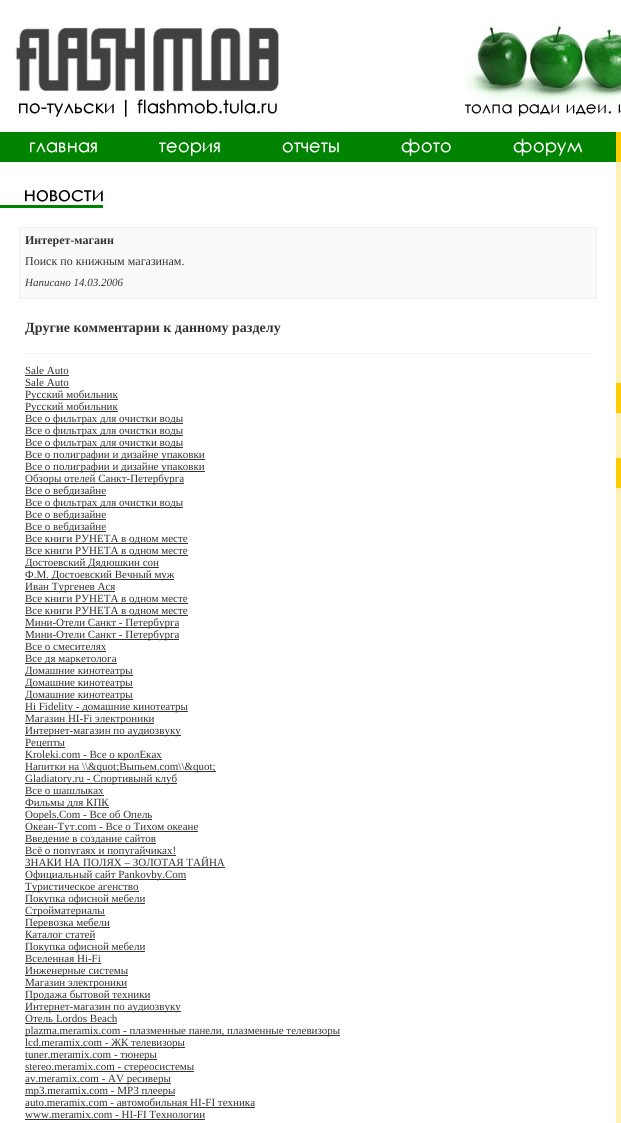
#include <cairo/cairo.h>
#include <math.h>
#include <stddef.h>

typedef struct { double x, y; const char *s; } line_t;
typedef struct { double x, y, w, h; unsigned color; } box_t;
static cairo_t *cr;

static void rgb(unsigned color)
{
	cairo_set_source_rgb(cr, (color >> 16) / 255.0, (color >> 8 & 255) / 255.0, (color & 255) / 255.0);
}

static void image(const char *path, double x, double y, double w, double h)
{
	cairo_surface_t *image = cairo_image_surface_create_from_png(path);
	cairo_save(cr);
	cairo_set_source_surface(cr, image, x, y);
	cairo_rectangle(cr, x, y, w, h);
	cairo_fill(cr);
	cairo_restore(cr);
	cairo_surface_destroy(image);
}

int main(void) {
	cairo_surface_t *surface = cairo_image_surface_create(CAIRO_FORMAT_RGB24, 621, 1123);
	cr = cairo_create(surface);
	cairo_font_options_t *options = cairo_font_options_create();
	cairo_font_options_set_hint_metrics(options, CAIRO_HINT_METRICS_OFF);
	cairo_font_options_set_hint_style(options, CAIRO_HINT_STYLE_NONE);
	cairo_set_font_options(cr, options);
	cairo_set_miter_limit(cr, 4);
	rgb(0xffffff);
	cairo_paint(cr);
	image("img/1.png", 15, 24, 264, 93);
	image("img/2.png", 465, 24, 156, 93);
	image("img/3.png", 0, 132, 127, 30);
	rgb(0x008400);
	cairo_rectangle(cr, 127, 132, 3, 30);
	cairo_fill(cr);
	image("img/4.png", 130, 132, 120, 30);
	cairo_rectangle(cr, 250, 132, 3, 30);
	cairo_fill(cr);
	image("img/5.png", 253, 132, 116, 30);
	cairo_rectangle(cr, 369, 132, 3, 30);
	cairo_fill(cr);
	image("img/6.png", 372, 132, 109, 30);
	cairo_rectangle(cr, 481, 132, 3, 30);
	cairo_fill(cr);
	image("img/7.png", 484, 132, 128, 30);
	{
		static const box_t items[] = {
			{612, 132, 3, 30, 0x008400},
			{615, 132, 1, 30, 0x008200},
			{616, 132, 5, 30, 0xffcc00},
		};
		for (size_t i = 0; i < sizeof items / sizeof *items; i++) {
			rgb(items[i].color);
			cairo_rectangle(cr, items[i].x, items[i].y, items[i].w, items[i].h);
			cairo_fill(cr);
		}
	}
	image("img/8.png", 25, 190, 78, 12);
	rgb(0x008200);
	cairo_rectangle(cr, 0, 205, 103, 3);
	cairo_fill(cr);
	rgb(0xfafafa);
	cairo_rectangle(cr, 19.5, 227.5, 577, 71);
	cairo_fill_preserve(cr);
	rgb(0xf0f0f0);
	cairo_set_line_width(cr, 1);
	cairo_stroke(cr);
	{
		static const box_t items[] = {
			{25, 353, 566, 1, 0xf3f3f3},
			{25, 375, 44, 1, 0x333333},
			{25, 387, 44, 1, 0x333333},
			{25, 399, 93, 1, 0x333333},
			{25, 411, 93, 1, 0x333333},
			{25, 423, 158, 1, 0x333333},
			{25, 435, 158, 1, 0x333333},
			{25, 447, 158, 1, 0x333333},
			{25, 459, 180, 1, 0x333333},
			{25, 471, 180, 1, 0x333333},
			{25, 483, 159, 1, 0x333333},
			{25, 495, 81, 1, 0x333333},
			{25, 507, 158, 1, 0x333333},
			{25, 519, 81, 1, 0x333333},
			{25, 531, 81, 1, 0x333333},
			{25, 543, 163, 1, 0x333333},
			{25, 555, 163, 1, 0x333333},
			{25, 567, 134, 1, 0x333333},
			{25, 579, 149, 1, 0x333333},
			{25, 591, 90, 1, 0x333333},
			{25, 603, 163, 1, 0x333333},
			{25, 615, 163, 1, 0x333333},
			{25, 627, 154, 1, 0x333333},
			{25, 639, 154, 1, 0x333333},
			{25, 651, 81, 1, 0x333333},
			{25, 663, 92, 1, 0x333333},
			{25, 675, 108, 1, 0x333333},
			{25, 687, 108, 1, 0x333333},
			{25, 699, 108, 1, 0x333333},
			{25, 711, 163, 1, 0x333333},
			{25, 723, 129, 1, 0x333333},
			{25, 735, 156, 1, 0x333333},
			{25, 747, 40, 1, 0x333333},
			{25, 759, 137, 1, 0x333333},
			{25, 771, 191, 1, 0x333333},
			{25, 783, 152, 1, 0x333333},
			{25, 795, 79, 1, 0x333333},
			{25, 807, 84, 1, 0x333333},
			{25, 819, 127, 1, 0x333333},
			{25, 831, 173, 1, 0x333333},
			{25, 843, 131, 1, 0x333333},
			{25, 855, 151, 1, 0x333333},
			{25, 867, 200, 1, 0x333333},
			{25, 879, 161, 1, 0x333333},
			{25, 891, 114, 1, 0x333333},
			{25, 903, 120, 1, 0x333333},
			{25, 915, 80, 1, 0x333333},
			{25, 927, 85, 1, 0x333333},
			{25, 939, 70, 1, 0x333333},
			{25, 951, 120, 1, 0x333333},
			{25, 963, 76, 1, 0x333333},
			{25, 975, 103, 1, 0x333333},
			{25, 987, 102, 1, 0x333333},
			{25, 999, 125, 1, 0x333333},
			{25, 1011, 156, 1, 0x333333},
			{25, 1023, 92, 1, 0x333333},
			{25, 1035, 315, 1, 0x333333},
			{25, 1047, 160, 1, 0x333333},
			{25, 1059, 132, 1, 0x333333},
			{25, 1071, 169, 1, 0x333333},
			{25, 1083, 146, 1, 0x333333},
			{25, 1095, 150, 1, 0x333333},
			{25, 1107, 230, 1, 0x333333},
			{25, 1119, 180, 1, 0x333333},
			{616, 162, 5, 961, 0xfff0b7},
			{616, 383, 5, 30, 0xffcc00},
			{616, 458, 5, 30, 0xffcc00},
		};
		for (size_t i = 0; i < sizeof items / sizeof *items; i++) {
			rgb(items[i].color);
			cairo_rectangle(cr, items[i].x, items[i].y, items[i].w, items[i].h);
			cairo_fill(cr);
		}
	}
	cairo_select_font_face(cr, "Liberation Serif", CAIRO_FONT_SLANT_NORMAL, CAIRO_FONT_WEIGHT_BOLD);
	cairo_set_font_size(cr, 12);
	rgb(0x333333);
	cairo_move_to(cr, 25, 244);
	cairo_show_text(cr, "Интерет-магаин");
	cairo_select_font_face(cr, "Liberation Serif", CAIRO_FONT_SLANT_NORMAL, CAIRO_FONT_WEIGHT_NORMAL);
	cairo_move_to(cr, 25, 265);
	cairo_show_text(cr, "Поиск по книжным магазинам.");
	cairo_select_font_face(cr, "Liberation Serif", CAIRO_FONT_SLANT_ITALIC, CAIRO_FONT_WEIGHT_NORMAL);
	cairo_set_font_size(cr, 11);
	cairo_move_to(cr, 25, 286);
	cairo_show_text(cr, "Написано 14.03.2006");
	cairo_select_font_face(cr, "Liberation Serif", CAIRO_FONT_SLANT_NORMAL, CAIRO_FONT_WEIGHT_BOLD);
	cairo_set_font_size(cr, 14);
	cairo_move_to(cr, 25, 332);
	cairo_show_text(cr, "Другие комментарии к данному разделу");
	cairo_select_font_face(cr, "Liberation Serif", CAIRO_FONT_SLANT_NORMAL, CAIRO_FONT_WEIGHT_NORMAL);
	cairo_set_font_size(cr, 11);
	{
		static const line_t items[] = {
			{25, 374, "Sale Auto"},
			{25, 386, "Sale Auto"},
			{25, 398, "Русский мобильник"},
			{25, 410, "Русский мобильник"},
			{25, 422, "Все о фильтрах для очистки воды"},
			{25, 434, "Все о фильтрах для очистки воды"},
			{25, 446, "Все о фильтрах для очистки воды"},
			{25, 458, "Все о полиграфии и дизайне упаковки"},
			{25, 470, "Все о полиграфии и дизайне упаковки"},
			{25, 482, "Обзоры отелей Санкт-Петербурга"},
			{25, 494, "Все о вебдизайне"},
			{25, 506, "Все о фильтрах для очистки воды"},
			{25, 518, "Все о вебдизайне"},
			{25, 530, "Все о вебдизайне"},
			{25, 542, "Все книги РУНЕТА в одном месте"},
			{25, 554, "Все книги РУНЕТА в одном месте"},
			{25, 566, "Достоевский Дядюшкин сон"},
			{25, 578, "Ф.М. Достоевский Вечный муж"},
			{25, 590, "Иван Тургенев Ася"},
			{25, 602, "Все книги РУНЕТА в одном месте"},
			{25, 614, "Все книги РУНЕТА в одном месте"},
			{25, 626, "Мини-Отели Санкт - Петербурга"},
			{25, 638, "Мини-Отели Санкт - Петербурга"},
			{25, 650, "Все о смесителях"},
			{25, 662, "Все дя маркетолога"},
			{25, 674, "Домашние кинотеатры"},
			{25, 686, "Домашние кинотеатры"},
			{25, 698, "Домашние кинотеатры"},
			{25, 710, "Hi Fidelity - домашние кинотеатры"},
			{25, 722, "Магазин HI-Fi электроники"},
			{25, 734, "Интернет-магазин по аудиозвуку"},
			{25, 746, "Рецепты"},
			{25, 758, "Kroleki.com - Все о кролЕках"},
			{25, 770, "Напитки на \\\\&quot;Выпьем.com\\\\&quot;"},
			{25, 782, "Gladiatory.ru - Спортивынй клуб"},
			{25, 794, "Все о шашлыках"},
			{25, 806, "Фильмы для КПК"},
			{25, 818, "Oopels.Com - Все об Опель"},
			{25, 830, "Океан-Тут.com - Все о Тихом океане"},
			{25, 842, "Введение в создание сайтов"},
			{25, 854, "Всё о попугаях и попугайчиках!"},
			{25, 866, "ЗНАКИ НА ПОЛЯХ – ЗОЛОТАЯ ТАЙНА"},
			{25, 878, "Официальный сайт Pankovby.Com"},
			{25, 890, "Туристическое агенство"},
			{25, 902, "Покупка офисной мебели"},
			{25, 914, "Стройматериалы"},
			{25, 926, "Перевозка мебели"},
			{25, 938, "Каталог статей"},
			{25, 950, "Покупка офисной мебели"},
			{25, 962, "Вселенная Hi-Fi"},
			{25, 974, "Инженерные системы"},
			{25, 986, "Магазин электроники"},
			{25, 998, "Продажа бытовой техники"},
			{25, 1010, "Интернет-магазин по аудиозвуку"},
			{25, 1022, "Отель Lordos Beach"},
			{25, 1034, "plazma.meramix.com - плазменные панели, плазменные телевизоры"},
			{25, 1046, "lcd.meramix.com - ЖК телевизоры"},
			{25, 1058, "tuner.meramix.com - тюнеры"},
			{25, 1070, "stereo.meramix.com - стереосистемы"},
			{25, 1082, "av.meramix.com - AV ресиверы"},
			{25, 1094, "mp3.meramix.com - MP3 плееры"},
			{25, 1106, "auto.meramix.com - автомобильная HI-FI техника"},
			{25, 1118, "www.meramix.com - HI-FI Технологии"},
		};
		for (size_t i = 0; i < sizeof items / sizeof *items; i++) {
			cairo_move_to(cr, items[i].x, items[i].y);
			cairo_show_text(cr, items[i].s);
		}
	}
	cairo_surface_write_to_png(surface, "page.png");
	cairo_font_options_destroy(options);
	cairo_destroy(cr);
	cairo_surface_destroy(surface);
	return 0;
}
